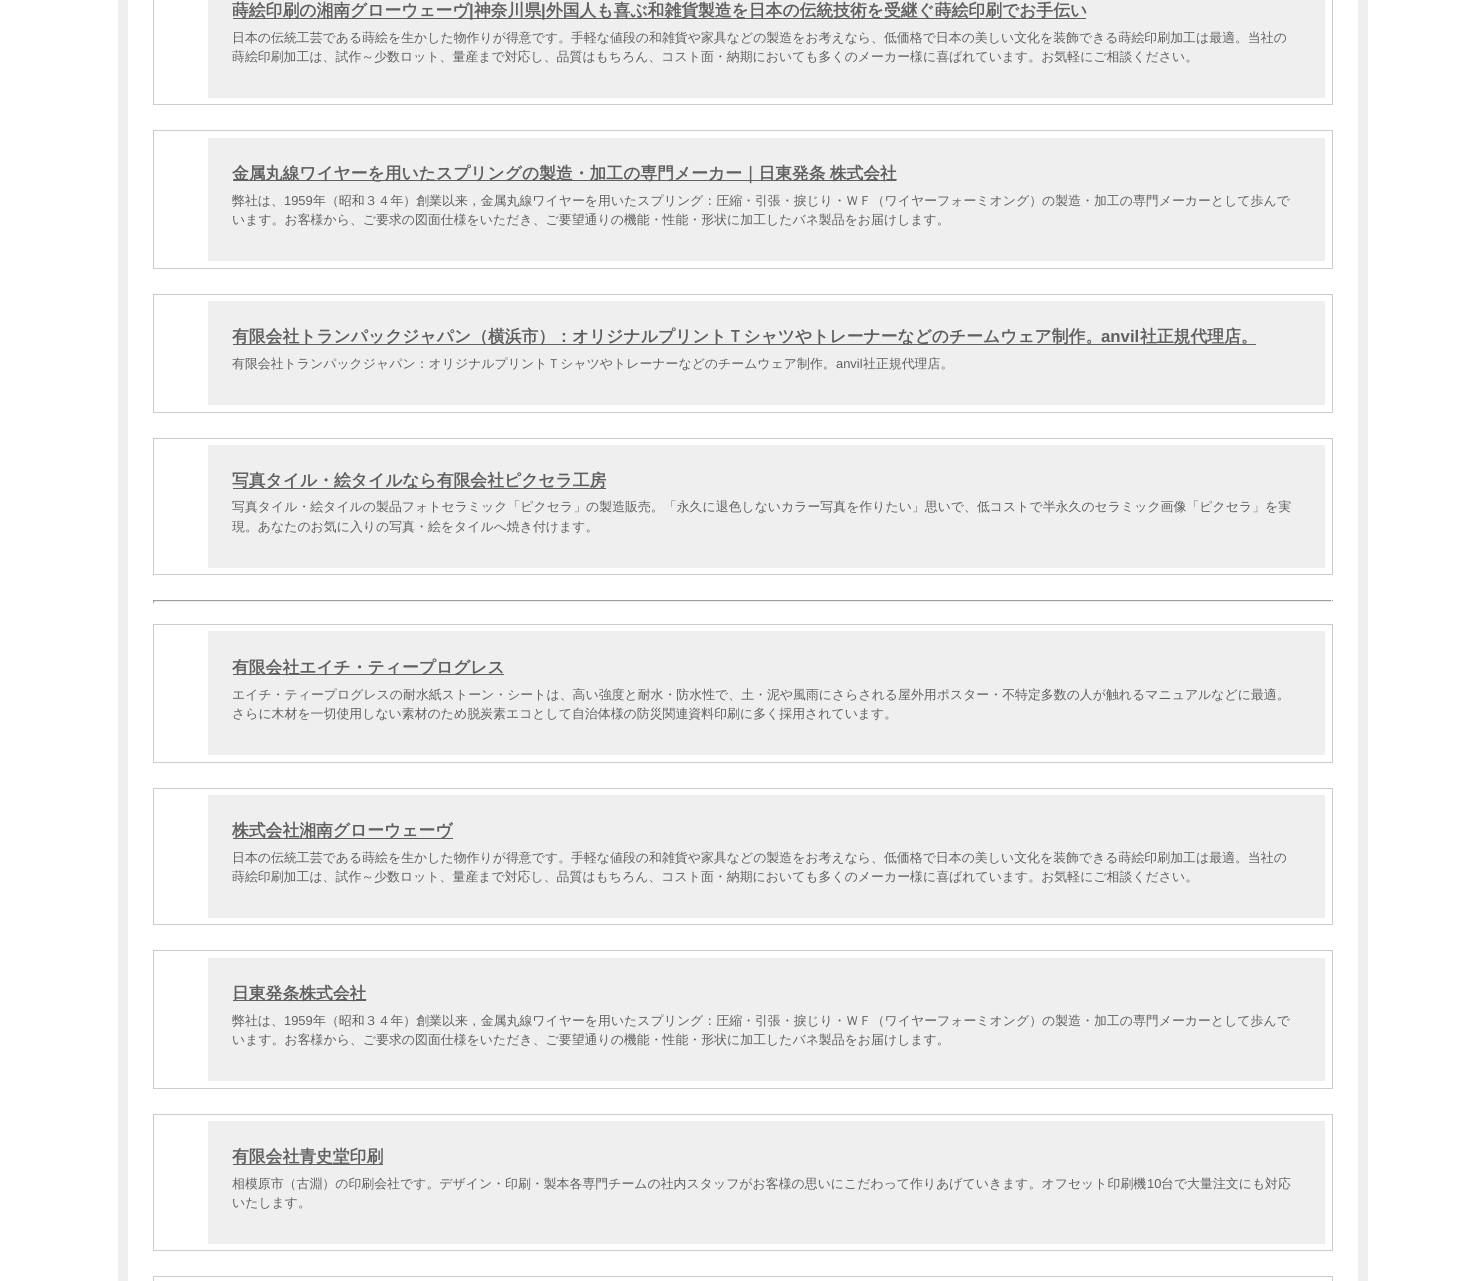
#include <cairo/cairo.h>
#include <math.h>
#include <stddef.h>

typedef struct { double x, y, w, h; unsigned color; } box_t;
static cairo_t *cr;

static void rgb(unsigned color)
{
	cairo_set_source_rgb(cr, (color >> 16) / 255.0, (color >> 8 & 255) / 255.0, (color & 255) / 255.0);
}

static void tracked(double x, double y, const char *s, double letter, double word)
{
	cairo_move_to(cr, x, y);
	while (*s) {
		char ch[5] = {0};
		int n = 0;
		do ch[n++] = *s++; while ((*s & 0xC0) == 0x80);
		cairo_show_text(cr, ch);
		cairo_rel_move_to(cr, letter + word * (*ch == ' '), 0);
	}
}

int main(void) {
	cairo_surface_t *surface = cairo_image_surface_create(CAIRO_FORMAT_RGB24, 1483, 1281);
	cr = cairo_create(surface);
	cairo_font_options_t *options = cairo_font_options_create();
	cairo_font_options_set_hint_metrics(options, CAIRO_HINT_METRICS_OFF);
	cairo_font_options_set_hint_style(options, CAIRO_HINT_STYLE_NONE);
	cairo_set_font_options(cr, options);
	cairo_set_miter_limit(cr, 4);
	rgb(0xffffff);
	cairo_paint(cr);
	rgb(0xefefef);
	cairo_rectangle(cr, 118, 0, 1250, 1281);
	cairo_fill(cr);
	rgb(0xffffff);
	cairo_rectangle(cr, 128, 0, 1230, 1281);
	cairo_fill(cr);
	cairo_rectangle(cr, 153.5, -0.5, 1179, 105);
	rgb(0xcccccc);
	cairo_set_line_width(cr, 1);
	cairo_stroke(cr);
	rgb(0xefefef);
	cairo_rectangle(cr, 208, 0, 1117, 98);
	cairo_fill(cr);
	rgb(0x606060);
	cairo_rectangle(cr, 233, 18, 853, 1);
	cairo_fill(cr);
	cairo_rectangle(cr, 153.5, 130.5, 1179, 138);
	rgb(0xcccccc);
	cairo_stroke(cr);
	rgb(0xefefef);
	cairo_rectangle(cr, 208, 138, 1117, 123);
	cairo_fill(cr);
	rgb(0x606060);
	cairo_rectangle(cr, 233, 180, 663, 1);
	cairo_fill(cr);
	cairo_rectangle(cr, 153.5, 294.5, 1179, 118);
	rgb(0xcccccc);
	cairo_stroke(cr);
	rgb(0xefefef);
	cairo_rectangle(cr, 208, 301, 1117, 104);
	cairo_fill(cr);
	rgb(0x606060);
	cairo_rectangle(cr, 233, 344, 1023, 1);
	cairo_fill(cr);
	cairo_rectangle(cr, 153.5, 438.5, 1179, 136);
	rgb(0xcccccc);
	cairo_stroke(cr);
	{
		static const box_t items[] = {
			{208, 445, 1117, 123, 0xefefef},
			{233, 488, 373, 1, 0x606060},
			{153, 600, 1180, 1, 0x9f9f9f},
			{1331, 600, 1, 3, 0xeeeeee},
			{153, 601, 1180, 1, 0xeeeeee},
			{153, 600, 1, 3, 0x9f9f9f},
		};
		for (size_t i = 0; i < sizeof items / sizeof *items; i++) {
			rgb(items[i].color);
			cairo_rectangle(cr, items[i].x, items[i].y, items[i].w, items[i].h);
			cairo_fill(cr);
		}
	}
	cairo_rectangle(cr, 153.5, 624.5, 1179, 138);
	rgb(0xcccccc);
	cairo_stroke(cr);
	rgb(0xefefef);
	cairo_rectangle(cr, 208, 631, 1117, 124);
	cairo_fill(cr);
	rgb(0x606060);
	cairo_rectangle(cr, 233, 674, 271, 1);
	cairo_fill(cr);
	cairo_rectangle(cr, 153.5, 788.5, 1179, 136);
	rgb(0xcccccc);
	cairo_stroke(cr);
	rgb(0xefefef);
	cairo_rectangle(cr, 208, 795, 1117, 123);
	cairo_fill(cr);
	rgb(0x606060);
	cairo_rectangle(cr, 233, 838, 220, 1);
	cairo_fill(cr);
	cairo_rectangle(cr, 153.5, 950.5, 1179, 138);
	rgb(0xcccccc);
	cairo_stroke(cr);
	rgb(0xefefef);
	cairo_rectangle(cr, 208, 958, 1117, 123);
	cairo_fill(cr);
	rgb(0x606060);
	cairo_rectangle(cr, 233, 1000, 133, 1);
	cairo_fill(cr);
	cairo_rectangle(cr, 153.5, 1114.5, 1179, 136);
	rgb(0xcccccc);
	cairo_stroke(cr);
	rgb(0xefefef);
	cairo_rectangle(cr, 208, 1121, 1117, 123);
	cairo_fill(cr);
	rgb(0x606060);
	cairo_rectangle(cr, 233, 1164, 150, 1);
	cairo_fill(cr);
	cairo_rectangle(cr, 153.5, 1276.5, 1179, 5);
	rgb(0xcccccc);
	cairo_stroke(cr);
	cairo_select_font_face(cr, "WenQuanYi Zen Hei", CAIRO_FONT_SLANT_NORMAL, CAIRO_FONT_WEIGHT_BOLD);
	cairo_set_font_size(cr, 16.8);
	rgb(0x606060);
	cairo_move_to(cr, 232, 16);
	cairo_show_text(cr, "蒔絵印刷の湘南グローウェーヴ");
	cairo_select_font_face(cr, "Liberation Sans", CAIRO_FONT_SLANT_NORMAL, CAIRO_FONT_WEIGHT_BOLD);
	cairo_move_to(cr, 469, 16);
	cairo_show_text(cr, "|");
	cairo_select_font_face(cr, "WenQuanYi Zen Hei", CAIRO_FONT_SLANT_NORMAL, CAIRO_FONT_WEIGHT_BOLD);
	cairo_move_to(cr, 474, 16);
	cairo_show_text(cr, "神奈川県");
	cairo_select_font_face(cr, "Liberation Sans", CAIRO_FONT_SLANT_NORMAL, CAIRO_FONT_WEIGHT_BOLD);
	cairo_move_to(cr, 541, 16);
	cairo_show_text(cr, "|");
	cairo_select_font_face(cr, "WenQuanYi Zen Hei", CAIRO_FONT_SLANT_NORMAL, CAIRO_FONT_WEIGHT_BOLD);
	cairo_move_to(cr, 546, 16);
	cairo_show_text(cr, "外国人も喜ぶ和雑貨製造を日本の伝統技術を受継ぐ蒔絵印刷でお手伝い");
	cairo_select_font_face(cr, "WenQuanYi Zen Hei Medium", CAIRO_FONT_SLANT_NORMAL, CAIRO_FONT_WEIGHT_NORMAL);
	cairo_set_font_size(cr, 12.9);
	cairo_move_to(cr, 232, 42);
	cairo_show_text(cr, "日本の伝統工芸である蒔絵を生かした物作りが得意です。手軽な値段の和雑貨や家具などの製造をお考えなら、低価格で日本の美しい文化を装飾できる蒔絵印刷加工は最適。当社の");
	cairo_move_to(cr, 232, 61);
	cairo_show_text(cr, "蒔絵印刷加工は、試作～少数ロット、量産まで対応し、品質はもちろん、コスト面・納期においても多くのメーカー様に喜ばれています。お気軽にご相談ください。");
	cairo_select_font_face(cr, "WenQuanYi Zen Hei", CAIRO_FONT_SLANT_NORMAL, CAIRO_FONT_WEIGHT_BOLD);
	cairo_set_font_size(cr, 16.8);
	tracked(232, 179, "金属丸線ワイヤーを用いたスプリングの製造・加工の専門メーカー｜日東発条 株式会社", 0, -1);
	cairo_select_font_face(cr, "WenQuanYi Zen Hei Medium", CAIRO_FONT_SLANT_NORMAL, CAIRO_FONT_WEIGHT_NORMAL);
	cairo_set_font_size(cr, 12.9);
	cairo_move_to(cr, 232, 205);
	cairo_show_text(cr, "弊社は、");
	cairo_select_font_face(cr, "Liberation Sans", CAIRO_FONT_SLANT_NORMAL, CAIRO_FONT_WEIGHT_NORMAL);
	cairo_move_to(cr, 284, 205);
	cairo_show_text(cr, "1959");
	cairo_select_font_face(cr, "WenQuanYi Zen Hei Medium", CAIRO_FONT_SLANT_NORMAL, CAIRO_FONT_WEIGHT_NORMAL);
	cairo_move_to(cr, 313, 205);
	cairo_show_text(cr, "年（昭和３４年）創業以来，金属丸線ワイヤーを用いたスプリング：圧縮・引張・捩じり・ＷＦ（ワイヤーフォーミオング）の製造・加工の専門メーカーとして歩んで");
	cairo_move_to(cr, 232, 224);
	cairo_show_text(cr, "います。お客様から、ご要求の図面仕様をいただき、ご要望通りの機能・性能・形状に加工したバネ製品をお届けします。");
	cairo_select_font_face(cr, "WenQuanYi Zen Hei", CAIRO_FONT_SLANT_NORMAL, CAIRO_FONT_WEIGHT_BOLD);
	cairo_set_font_size(cr, 16.8);
	cairo_move_to(cr, 232, 342);
	cairo_show_text(cr, "有限会社トランパックジャパン（横浜市）：オリジナルプリントＴシャツやトレーナーなどのチームウェア制作。");
	cairo_select_font_face(cr, "Liberation Sans", CAIRO_FONT_SLANT_NORMAL, CAIRO_FONT_WEIGHT_BOLD);
	cairo_move_to(cr, 1101, 342);
	cairo_show_text(cr, "anvil");
	cairo_select_font_face(cr, "WenQuanYi Zen Hei", CAIRO_FONT_SLANT_NORMAL, CAIRO_FONT_WEIGHT_BOLD);
	cairo_move_to(cr, 1140, 342);
	cairo_show_text(cr, "社正規代理店。");
	cairo_select_font_face(cr, "WenQuanYi Zen Hei Medium", CAIRO_FONT_SLANT_NORMAL, CAIRO_FONT_WEIGHT_NORMAL);
	cairo_set_font_size(cr, 12.9);
	cairo_move_to(cr, 232, 368);
	cairo_show_text(cr, "有限会社トランパックジャパン：オリジナルプリントＴシャツやトレーナーなどのチームウェア制作。");
	cairo_select_font_face(cr, "Liberation Sans", CAIRO_FONT_SLANT_NORMAL, CAIRO_FONT_WEIGHT_NORMAL);
	cairo_move_to(cr, 836, 368);
	cairo_show_text(cr, "anvil");
	cairo_select_font_face(cr, "WenQuanYi Zen Hei Medium", CAIRO_FONT_SLANT_NORMAL, CAIRO_FONT_WEIGHT_NORMAL);
	cairo_move_to(cr, 863, 368);
	cairo_show_text(cr, "社正規代理店。");
	cairo_select_font_face(cr, "WenQuanYi Zen Hei", CAIRO_FONT_SLANT_NORMAL, CAIRO_FONT_WEIGHT_BOLD);
	cairo_set_font_size(cr, 16.8);
	cairo_move_to(cr, 232, 486);
	cairo_show_text(cr, "写真タイル・絵タイルなら有限会社ピクセラ工房");
	cairo_select_font_face(cr, "WenQuanYi Zen Hei Medium", CAIRO_FONT_SLANT_NORMAL, CAIRO_FONT_WEIGHT_NORMAL);
	cairo_set_font_size(cr, 12.9);
	cairo_move_to(cr, 232, 511);
	cairo_show_text(cr, "写真タイル・絵タイルの製品フォトセラミック「ピクセラ」の製造販売。「永久に退色しないカラー写真を作りたい」思いで、低コストで半永久のセラミック画像「ピクセラ」を実");
	cairo_move_to(cr, 232, 531);
	cairo_show_text(cr, "現。あなたのお気に入りの写真・絵をタイルへ焼き付けます。");
	cairo_select_font_face(cr, "WenQuanYi Zen Hei", CAIRO_FONT_SLANT_NORMAL, CAIRO_FONT_WEIGHT_BOLD);
	cairo_set_font_size(cr, 16.8);
	cairo_move_to(cr, 232, 673);
	cairo_show_text(cr, "有限会社エイチ・ティープログレス");
	cairo_select_font_face(cr, "WenQuanYi Zen Hei Medium", CAIRO_FONT_SLANT_NORMAL, CAIRO_FONT_WEIGHT_NORMAL);
	cairo_set_font_size(cr, 12.9);
	cairo_move_to(cr, 232, 699);
	cairo_show_text(cr, "エイチ・ティープログレスの耐水紙ストーン・シートは、高い強度と耐水・防水性で、土・泥や風雨にさらされる屋外用ポスター・不特定多数の人が触れるマニュアルなどに最適。");
	cairo_move_to(cr, 232, 718);
	cairo_show_text(cr, "さらに木材を一切使用しない素材のため脱炭素エコとして自治体様の防災関連資料印刷に多く採用されています。");
	cairo_select_font_face(cr, "WenQuanYi Zen Hei", CAIRO_FONT_SLANT_NORMAL, CAIRO_FONT_WEIGHT_BOLD);
	cairo_set_font_size(cr, 16.8);
	cairo_move_to(cr, 232, 836);
	cairo_show_text(cr, "株式会社湘南グローウェーヴ");
	cairo_select_font_face(cr, "WenQuanYi Zen Hei Medium", CAIRO_FONT_SLANT_NORMAL, CAIRO_FONT_WEIGHT_NORMAL);
	cairo_set_font_size(cr, 12.9);
	cairo_move_to(cr, 232, 862);
	cairo_show_text(cr, "日本の伝統工芸である蒔絵を生かした物作りが得意です。手軽な値段の和雑貨や家具などの製造をお考えなら、低価格で日本の美しい文化を装飾できる蒔絵印刷加工は最適。当社の");
	cairo_move_to(cr, 232, 881);
	cairo_show_text(cr, "蒔絵印刷加工は、試作～少数ロット、量産まで対応し、品質はもちろん、コスト面・納期においても多くのメーカー様に喜ばれています。お気軽にご相談ください。");
	cairo_select_font_face(cr, "WenQuanYi Zen Hei", CAIRO_FONT_SLANT_NORMAL, CAIRO_FONT_WEIGHT_BOLD);
	cairo_set_font_size(cr, 16.8);
	cairo_move_to(cr, 232, 999);
	cairo_show_text(cr, "日東発条株式会社");
	cairo_select_font_face(cr, "WenQuanYi Zen Hei Medium", CAIRO_FONT_SLANT_NORMAL, CAIRO_FONT_WEIGHT_NORMAL);
	cairo_set_font_size(cr, 12.9);
	cairo_move_to(cr, 232, 1025);
	cairo_show_text(cr, "弊社は、");
	cairo_select_font_face(cr, "Liberation Sans", CAIRO_FONT_SLANT_NORMAL, CAIRO_FONT_WEIGHT_NORMAL);
	cairo_move_to(cr, 284, 1025);
	cairo_show_text(cr, "1959");
	cairo_select_font_face(cr, "WenQuanYi Zen Hei Medium", CAIRO_FONT_SLANT_NORMAL, CAIRO_FONT_WEIGHT_NORMAL);
	cairo_move_to(cr, 313, 1025);
	cairo_show_text(cr, "年（昭和３４年）創業以来，金属丸線ワイヤーを用いたスプリング：圧縮・引張・捩じり・ＷＦ（ワイヤーフォーミオング）の製造・加工の専門メーカーとして歩んで");
	cairo_move_to(cr, 232, 1044);
	cairo_show_text(cr, "います。お客様から、ご要求の図面仕様をいただき、ご要望通りの機能・性能・形状に加工したバネ製品をお届けします。");
	cairo_select_font_face(cr, "WenQuanYi Zen Hei", CAIRO_FONT_SLANT_NORMAL, CAIRO_FONT_WEIGHT_BOLD);
	cairo_set_font_size(cr, 16.8);
	cairo_move_to(cr, 232, 1162);
	cairo_show_text(cr, "有限会社青史堂印刷");
	cairo_select_font_face(cr, "WenQuanYi Zen Hei Medium", CAIRO_FONT_SLANT_NORMAL, CAIRO_FONT_WEIGHT_NORMAL);
	cairo_set_font_size(cr, 12.9);
	cairo_move_to(cr, 232, 1188);
	cairo_show_text(cr, "相模原市（古淵）の印刷会社です。デザイン・印刷・製本各専門チームの社内スタッフがお客様の思いにこだわって作りあげていきます。オフセット印刷機");
	cairo_select_font_face(cr, "Liberation Sans", CAIRO_FONT_SLANT_NORMAL, CAIRO_FONT_WEIGHT_NORMAL);
	cairo_move_to(cr, 1147, 1188);
	cairo_show_text(cr, "10");
	cairo_select_font_face(cr, "WenQuanYi Zen Hei Medium", CAIRO_FONT_SLANT_NORMAL, CAIRO_FONT_WEIGHT_NORMAL);
	cairo_move_to(cr, 1161, 1188);
	cairo_show_text(cr, "台で大量注文にも対応");
	cairo_move_to(cr, 232, 1207);
	cairo_show_text(cr, "いたします。");
	cairo_surface_write_to_png(surface, "page.png");
	cairo_font_options_destroy(options);
	cairo_destroy(cr);
	cairo_surface_destroy(surface);
	return 0;
}
